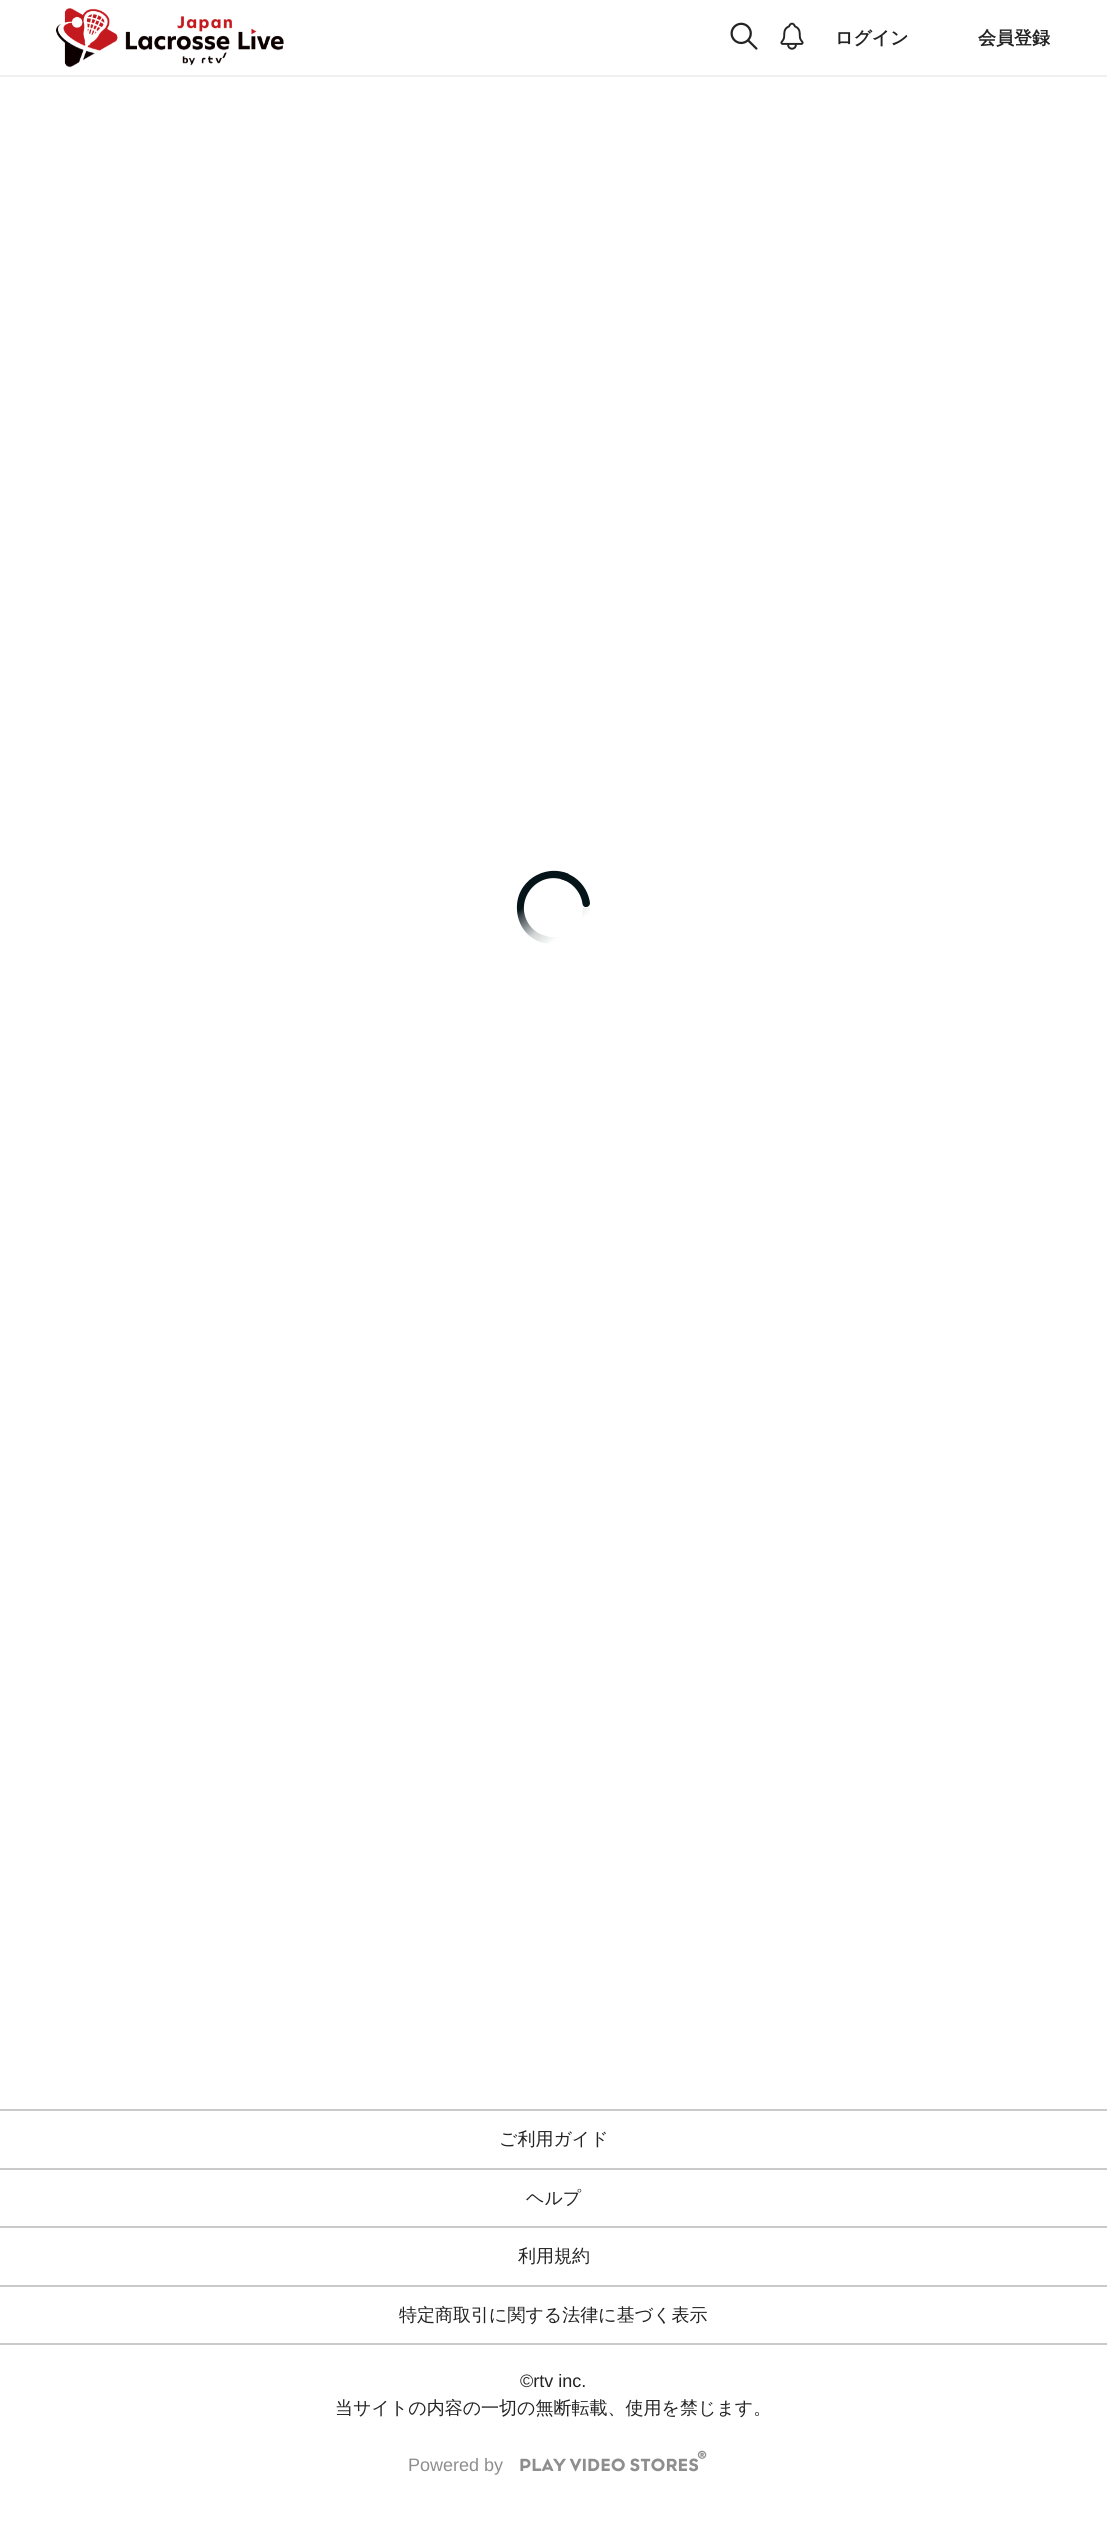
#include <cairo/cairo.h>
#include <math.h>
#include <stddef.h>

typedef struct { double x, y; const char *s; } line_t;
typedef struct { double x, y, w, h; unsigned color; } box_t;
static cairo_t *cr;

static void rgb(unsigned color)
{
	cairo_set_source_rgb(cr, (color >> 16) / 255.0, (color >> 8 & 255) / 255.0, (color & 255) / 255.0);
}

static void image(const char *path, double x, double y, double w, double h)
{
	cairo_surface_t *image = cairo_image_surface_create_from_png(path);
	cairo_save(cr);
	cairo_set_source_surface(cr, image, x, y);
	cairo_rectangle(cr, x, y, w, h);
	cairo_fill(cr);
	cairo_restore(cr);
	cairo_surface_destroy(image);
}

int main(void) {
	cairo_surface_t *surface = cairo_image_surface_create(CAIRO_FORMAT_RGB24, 1107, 2522);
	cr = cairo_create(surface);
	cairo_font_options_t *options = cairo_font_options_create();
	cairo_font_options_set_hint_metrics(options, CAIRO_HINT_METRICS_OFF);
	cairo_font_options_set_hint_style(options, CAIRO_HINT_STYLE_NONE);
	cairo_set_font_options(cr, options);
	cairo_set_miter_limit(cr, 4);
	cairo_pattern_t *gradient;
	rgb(0xffffff);
	cairo_paint(cr);
	rgb(0xefefef);
	cairo_rectangle(cr, 0, 75, 1107, 2);
	cairo_fill(cr);
	image("img/1.png", 56, 8, 228, 60);
	image("img/2.png", 730, 22, 28, 28);
	image("img/3.png", 780, 22, 24, 28);
	rgb(0x051419);
	cairo_new_path(cr);
	cairo_move_to(cr, 560.5, 879);
	cairo_curve_to(cr, 572, 882, 581, 892, 582.5, 904);
	cairo_curve_to(cr, 583, 906, 584.5, 907.5, 586.5, 907);
	cairo_curve_to(cr, 588.5, 907, 590, 905, 590, 903);
	cairo_curve_to(cr, 588, 888.5, 578, 876.5, 564, 872.5);
	cairo_close_path(cr);
	cairo_fill(cr);
	gradient = cairo_pattern_create_linear(530, 878, 577, 937);
	cairo_pattern_add_color_stop_rgba(gradient, 0, 0.02, 0.078, 0.098, 1);
	cairo_pattern_add_color_stop_rgba(gradient, 0.24, 0.02, 0.078, 0.098, 1);
	cairo_pattern_add_color_stop_rgba(gradient, 0.33, 0.02, 0.078, 0.098, 0.75);
	cairo_pattern_add_color_stop_rgba(gradient, 0.61, 0.02, 0.078, 0.098, 0.19);
	cairo_pattern_add_color_stop_rgba(gradient, 0.86, 0.02, 0.078, 0.098, 0);
	cairo_set_source(cr, gradient);
	cairo_pattern_destroy(gradient);
	cairo_new_path(cr);
	cairo_move_to(cr, 583, 908);
	cairo_line_to(cr, 590, 908);
	cairo_curve_to(cr, 590, 928, 574, 944, 554, 944);
	cairo_curve_to(cr, 534, 945, 518, 930, 517, 910);
	cairo_curve_to(cr, 515, 882, 544, 863, 569, 874);
	cairo_line_to(cr, 566, 881);
	cairo_curve_to(cr, 540, 869, 515, 897, 527, 921);
	cairo_curve_to(cr, 530, 927, 536, 933, 543, 935);
	cairo_curve_to(cr, 552, 939, 562, 937, 570, 932);
	cairo_curve_to(cr, 578, 927, 583, 918, 583, 908);
	cairo_close_path(cr);
	cairo_fill(cr);
	{
		static const box_t items[] = {
			{0, 2109, 1107, 2, 0xcacaca},
			{0, 2168, 1107, 2, 0xcacaca},
			{0, 2226, 1107, 2, 0xcacaca},
			{0, 2285, 1107, 2, 0xcacaca},
			{0, 2343, 1107, 2, 0xcacaca},
		};
		for (size_t i = 0; i < sizeof items / sizeof *items; i++) {
			rgb(items[i].color);
			cairo_rectangle(cr, items[i].x, items[i].y, items[i].w, items[i].h);
			cairo_fill(cr);
		}
	}
	cairo_select_font_face(cr, "WenQuanYi Zen Hei", CAIRO_FONT_SLANT_NORMAL, CAIRO_FONT_WEIGHT_BOLD);
	cairo_set_font_size(cr, 18);
	rgb(0x232323);
	cairo_move_to(cr, 835, 44);
	cairo_show_text(cr, "ログイン");
	cairo_move_to(cr, 978, 44);
	cairo_show_text(cr, "会員登録");
	cairo_select_font_face(cr, "WenQuanYi Zen Hei Medium", CAIRO_FONT_SLANT_NORMAL, CAIRO_FONT_WEIGHT_NORMAL);
	{
		static const line_t items[] = {
			{499, 2145, "ご利用ガイド"},
			{526, 2204, "ヘルプ"},
			{518, 2262, "利用規約"},
			{399, 2321, "特定商取引に関する法律に基づく表示"},
		};
		for (size_t i = 0; i < sizeof items / sizeof *items; i++) {
			cairo_move_to(cr, items[i].x, items[i].y);
			cairo_show_text(cr, items[i].s);
		}
	}
	cairo_select_font_face(cr, "Liberation Sans", CAIRO_FONT_SLANT_NORMAL, CAIRO_FONT_WEIGHT_NORMAL);
	cairo_move_to(cr, 520, 2387);
	cairo_show_text(cr, "©rtv inc.");
	cairo_select_font_face(cr, "WenQuanYi Zen Hei Medium", CAIRO_FONT_SLANT_NORMAL, CAIRO_FONT_WEIGHT_NORMAL);
	cairo_move_to(cr, 335, 2414);
	cairo_show_text(cr, "当サイトの内容の一切の無断転載、使用を禁じます。");
	cairo_select_font_face(cr, "Liberation Sans", CAIRO_FONT_SLANT_NORMAL, CAIRO_FONT_WEIGHT_NORMAL);
	rgb(0x8e8e8e);
	cairo_move_to(cr, 408, 2471);
	cairo_show_text(cr, "Powered by");
	cairo_select_font_face(cr, "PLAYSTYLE", CAIRO_FONT_SLANT_NORMAL, CAIRO_FONT_WEIGHT_BOLD);
	cairo_set_font_size(cr, 22);
	cairo_move_to(cr, 697, 2466);
	cairo_show_text(cr, "®");
	cairo_set_font_size(cr, 18);
	cairo_move_to(cr, 519, 2471);
	cairo_show_text(cr, "PLAY VIDEO STORES");
	cairo_surface_write_to_png(surface, "page.png");
	cairo_font_options_destroy(options);
	cairo_destroy(cr);
	cairo_surface_destroy(surface);
	return 0;
}
